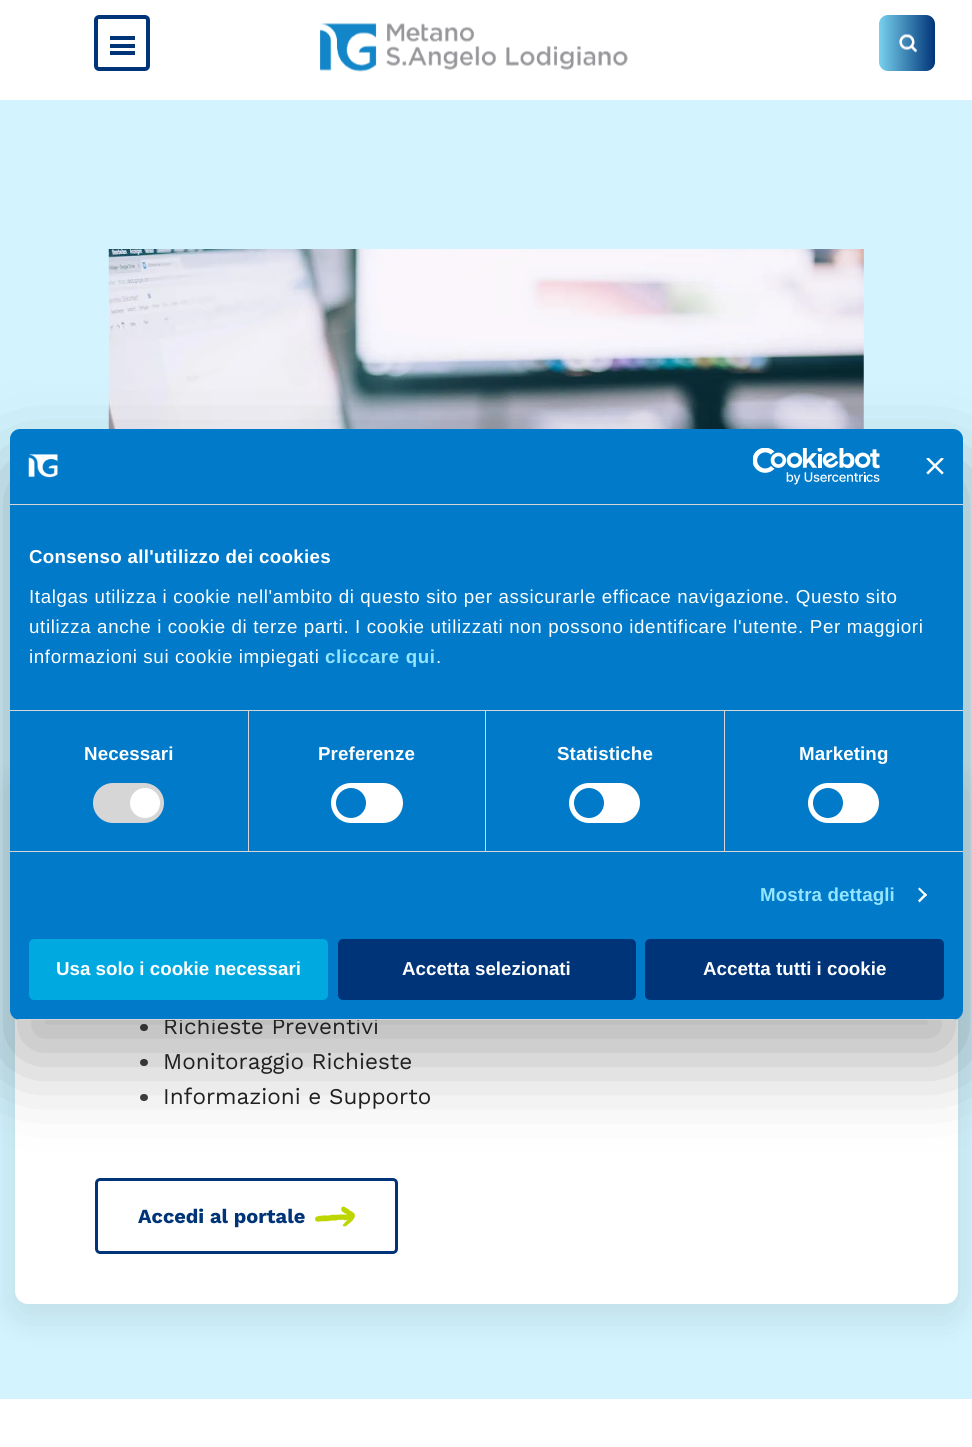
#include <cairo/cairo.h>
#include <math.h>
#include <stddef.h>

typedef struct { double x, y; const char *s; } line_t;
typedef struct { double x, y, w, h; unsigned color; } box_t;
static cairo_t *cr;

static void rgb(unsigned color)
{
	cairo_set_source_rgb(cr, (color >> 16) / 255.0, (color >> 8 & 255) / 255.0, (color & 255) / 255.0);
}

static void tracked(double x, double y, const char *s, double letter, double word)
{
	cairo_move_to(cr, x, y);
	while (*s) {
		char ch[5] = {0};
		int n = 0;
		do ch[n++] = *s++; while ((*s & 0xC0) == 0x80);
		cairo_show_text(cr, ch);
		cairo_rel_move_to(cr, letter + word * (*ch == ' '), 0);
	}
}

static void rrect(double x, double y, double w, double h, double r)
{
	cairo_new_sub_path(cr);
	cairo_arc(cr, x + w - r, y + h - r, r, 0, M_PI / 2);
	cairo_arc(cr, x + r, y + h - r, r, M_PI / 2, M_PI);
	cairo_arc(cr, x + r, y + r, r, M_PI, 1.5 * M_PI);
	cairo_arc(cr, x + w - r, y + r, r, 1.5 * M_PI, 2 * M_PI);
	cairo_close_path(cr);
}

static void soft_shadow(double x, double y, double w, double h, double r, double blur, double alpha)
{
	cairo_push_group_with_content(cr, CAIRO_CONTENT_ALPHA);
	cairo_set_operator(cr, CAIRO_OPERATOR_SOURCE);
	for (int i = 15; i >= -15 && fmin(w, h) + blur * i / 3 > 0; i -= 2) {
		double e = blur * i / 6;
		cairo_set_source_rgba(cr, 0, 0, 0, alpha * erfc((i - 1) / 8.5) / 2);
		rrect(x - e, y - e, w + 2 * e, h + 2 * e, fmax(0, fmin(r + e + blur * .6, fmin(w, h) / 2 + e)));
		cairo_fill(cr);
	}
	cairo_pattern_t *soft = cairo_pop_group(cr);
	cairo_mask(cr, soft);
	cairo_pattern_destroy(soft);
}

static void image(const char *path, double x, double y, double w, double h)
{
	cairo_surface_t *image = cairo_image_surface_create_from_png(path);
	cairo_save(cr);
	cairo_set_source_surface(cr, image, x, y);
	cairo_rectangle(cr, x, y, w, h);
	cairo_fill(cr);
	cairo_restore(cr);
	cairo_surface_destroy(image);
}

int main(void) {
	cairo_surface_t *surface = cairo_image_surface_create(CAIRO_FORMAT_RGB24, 972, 1447);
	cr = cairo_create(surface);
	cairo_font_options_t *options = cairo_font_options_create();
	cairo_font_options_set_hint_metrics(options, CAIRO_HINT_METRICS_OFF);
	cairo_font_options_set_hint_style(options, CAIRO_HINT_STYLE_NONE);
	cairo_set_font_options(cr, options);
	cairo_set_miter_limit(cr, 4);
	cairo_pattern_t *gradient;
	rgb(0xffffff);
	cairo_paint(cr);
	rrect(96, 17, 52, 52, 3);
	rgb(0x003478);
	cairo_set_line_width(cr, 4);
	cairo_stroke(cr);
	{
		static const box_t items[] = {
			{110, 36, 25, 4, 0x003478},
			{110, 44, 25, 4, 0x003478},
			{110, 51, 25, 4, 0x003478},
		};
		for (size_t i = 0; i < sizeof items / sizeof *items; i++) {
			rgb(items[i].color);
			cairo_rectangle(cr, items[i].x, items[i].y, items[i].w, items[i].h);
			cairo_fill(cr);
		}
	}
	image("img/1.png", 320, 23, 308, 49);
	gradient = cairo_pattern_create_linear(935, 43, 879, 43);
	cairo_pattern_add_color_stop_rgba(gradient, 0, 0, 0.204, 0.471, 1);
	cairo_pattern_add_color_stop_rgba(gradient, 1, 0.467, 0.82, 0.933, 1);
	cairo_set_source(cr, gradient);
	cairo_pattern_destroy(gradient);
	rrect(879, 15, 56, 56, 9);
	cairo_fill(cr);
	image("img/2.png", 899, 34, 18, 19);
	rgb(0xd3f4ff);
	cairo_rectangle(cr, 0, 100, 972, 1299);
	cairo_fill(cr);
	image("img/6.png", 108, 249, 756, 180);
	rgb(0x000000);
	soft_shadow(5, 773, 963, 551, 23, 15, 0.08);
	rgb(0xffffff);
	rrect(15, 773, 943, 531, 13);
	cairo_fill(cr);
	rgb(0x404040);
	rrect(140, 1024, 8, 7, 3.5);
	cairo_fill(cr);
	rrect(140, 1059, 8, 7, 3.5);
	cairo_fill(cr);
	rrect(140, 1094, 8, 7, 3.5);
	cairo_fill(cr);
	rrect(96.5, 1179.5, 300, 73, 3.5);
	rgb(0x003478);
	cairo_set_line_width(cr, 3);
	cairo_stroke(cr);
	rgb(0x000000);
	soft_shadow(10, 469, 953, 591, 10, 42.5, 0.3);
	image("img/7.png", 315, 1206, 40, 21);
	cairo_select_font_face(cr, "Work Sans", CAIRO_FONT_SLANT_NORMAL, CAIRO_FONT_WEIGHT_NORMAL);
	cairo_set_font_size(cr, 22.5);
	rgb(0x202020);
	cairo_move_to(cr, 163, 1034);
	cairo_show_text(cr, "Richieste Preventivi");
	rgb(0x007ac9);
	rrect(10, 429, 953, 591, 10);
	cairo_fill(cr);
	rgb(0x003478);
	rrect(646.5, 940.5, 296, 58, 3.5);
	cairo_fill_preserve(cr);
	cairo_stroke(cr);
	cairo_select_font_face(cr, "Liberation Sans", CAIRO_FONT_SLANT_NORMAL, CAIRO_FONT_WEIGHT_BOLD);
	cairo_set_font_size(cr, 18.75);
	rgb(0xffffff);
	cairo_move_to(cr, 703, 975);
	cairo_show_text(cr, "Accetta tutti i cookie");
	rgb(0x003478);
	rrect(339.5, 940.5, 295, 58, 3.5);
	cairo_fill_preserve(cr);
	cairo_stroke(cr);
	rgb(0xffffff);
	cairo_move_to(cr, 402, 975);
	cairo_show_text(cr, "Accetta selezionati");
	rgb(0x00a9e0);
	rrect(30.5, 940.5, 296, 58, 3.5);
	cairo_fill_preserve(cr);
	cairo_stroke(cr);
	rgb(0xffffff);
	cairo_move_to(cr, 56, 975);
	cairo_show_text(cr, "Usa solo i cookie necessari");
	cairo_save(cr);
	rrect(10, 429, 953, 591, 10);
	cairo_clip(cr);
	rgb(0xd6d6d6);
	cairo_rectangle(cr, 10, 1019, 953, 1);
	cairo_fill(cr);
	cairo_restore(cr);
	cairo_new_path(cr);
	cairo_move_to(cr, 919.5, 887.5);
	cairo_line_to(cr, 927, 895);
	cairo_line_to(cr, 925.5, 896.5);
	cairo_line_to(cr, 918, 889);
	cairo_close_path(cr);
	cairo_fill(cr);
	cairo_new_path(cr);
	cairo_move_to(cr, 925.5, 893);
	cairo_line_to(cr, 927, 895);
	cairo_line_to(cr, 919.5, 902.5);
	cairo_line_to(cr, 918, 900.5);
	cairo_close_path(cr);
	cairo_fill(cr);
	rrect(808, 783, 71, 40, 20);
	cairo_fill(cr);
	rgb(0x007ac9);
	cairo_arc(cr, 828, 803, 15, 0, 2 * M_PI);
	cairo_fill(cr);
	rgb(0xffffff);
	rrect(569, 783, 71, 40, 20);
	cairo_fill(cr);
	rgb(0x007ac9);
	cairo_arc(cr, 589, 803, 15, 0, 2 * M_PI);
	cairo_fill(cr);
	rgb(0xffffff);
	rrect(331, 783, 72, 40, 20);
	cairo_fill(cr);
	rgb(0x007ac9);
	cairo_arc(cr, 351, 803, 15, 0, 2 * M_PI);
	cairo_fill(cr);
	rgb(0xd6d6d6);
	rrect(93, 783, 71, 40, 20);
	cairo_fill(cr);
	rgb(0xffffff);
	cairo_arc(cr, 145, 803, 15, 0, 2 * M_PI);
	cairo_fill(cr);
	cairo_select_font_face(cr, "Liberation Sans", CAIRO_FONT_SLANT_NORMAL, CAIRO_FONT_WEIGHT_NORMAL);
	tracked(436, 663, ".", 0.62, 0);
	cairo_select_font_face(cr, "Liberation Sans", CAIRO_FONT_SLANT_NORMAL, CAIRO_FONT_WEIGHT_BOLD);
	rgb(0x94e5ff);
	tracked(325, 663, "cliccare qui", 0.62, 0);
	cairo_select_font_face(cr, "Liberation Sans", CAIRO_FONT_SLANT_NORMAL, CAIRO_FONT_WEIGHT_NORMAL);
	rgb(0xffffff);
	{
		static const line_t items[] = {
			{29, 663, "informazioni sui cookie impiegati"},
			{29, 633, "utilizza anche i cookie di terze parti. I cookie utilizzati non possono identificare l'utente. Per maggiori"},
			{29, 603, "Italgas utilizza i cookie nell'ambito di questo sito per assicurarle efficace navigazione. Questo sito"},
		};
		for (size_t i = 0; i < sizeof items / sizeof *items; i++) {
			tracked(items[i].x, items[i].y, items[i].s, 0.62, 0);
		}
	}
	cairo_select_font_face(cr, "Liberation Sans", CAIRO_FONT_SLANT_NORMAL, CAIRO_FONT_WEIGHT_BOLD);
	tracked(29, 563, "Consenso all'utilizzo dei cookies", 0.3, 0);
	rgb(0xd6d6d6);
	cairo_rectangle(cr, 10, 710, 953, 1);
	cairo_fill(cr);
	rgb(0x94e5ff);
	tracked(760, 901, "Mostra dettagli", 0.1, 0);
	rgb(0xffffff);
	tracked(799, 760, "Marketing", 0.1, 0);
	tracked(557, 760, "Statistiche", 0.1, 0);
	rgb(0xd6d6d6);
	cairo_rectangle(cr, 724, 711, 1, 140);
	cairo_fill(cr);
	rgb(0xffffff);
	tracked(318, 760, "Preferenze", 0.1, 0);
	rgb(0xd6d6d6);
	cairo_rectangle(cr, 485, 711, 1, 140);
	cairo_fill(cr);
	rgb(0xffffff);
	tracked(84, 760, "Necessari", 0.1, 0);
	rgb(0xd6d6d6);
	cairo_rectangle(cr, 248, 711, 1, 140);
	cairo_fill(cr);
	cairo_rectangle(cr, 10, 851, 953, 1);
	cairo_fill(cr);
	image("img/5.png", 926, 458, 18, 17);
	image("img/4.png", 753, 448, 127, 37);
	image("img/3.png", 28, 454, 30, 24);
	cairo_rectangle(cr, 10, 504, 953, 1);
	cairo_fill(cr);
	cairo_select_font_face(cr, "Work Sans", CAIRO_FONT_SLANT_NORMAL, CAIRO_FONT_WEIGHT_NORMAL);
	cairo_set_font_size(cr, 22.5);
	rgb(0x202020);
	cairo_move_to(cr, 163, 1069);
	cairo_show_text(cr, "Monitoraggio Richieste");
	cairo_move_to(cr, 163, 1104);
	cairo_show_text(cr, "Informazioni e Supporto");
	cairo_select_font_face(cr, "Work Sans", CAIRO_FONT_SLANT_NORMAL, CAIRO_FONT_WEIGHT_BOLD);
	cairo_set_font_size(cr, 20);
	rgb(0x003478);
	cairo_move_to(cr, 138, 1223);
	cairo_show_text(cr, "Accedi al portale");
	cairo_surface_write_to_png(surface, "page.png");
	cairo_font_options_destroy(options);
	cairo_destroy(cr);
	cairo_surface_destroy(surface);
	return 0;
}
